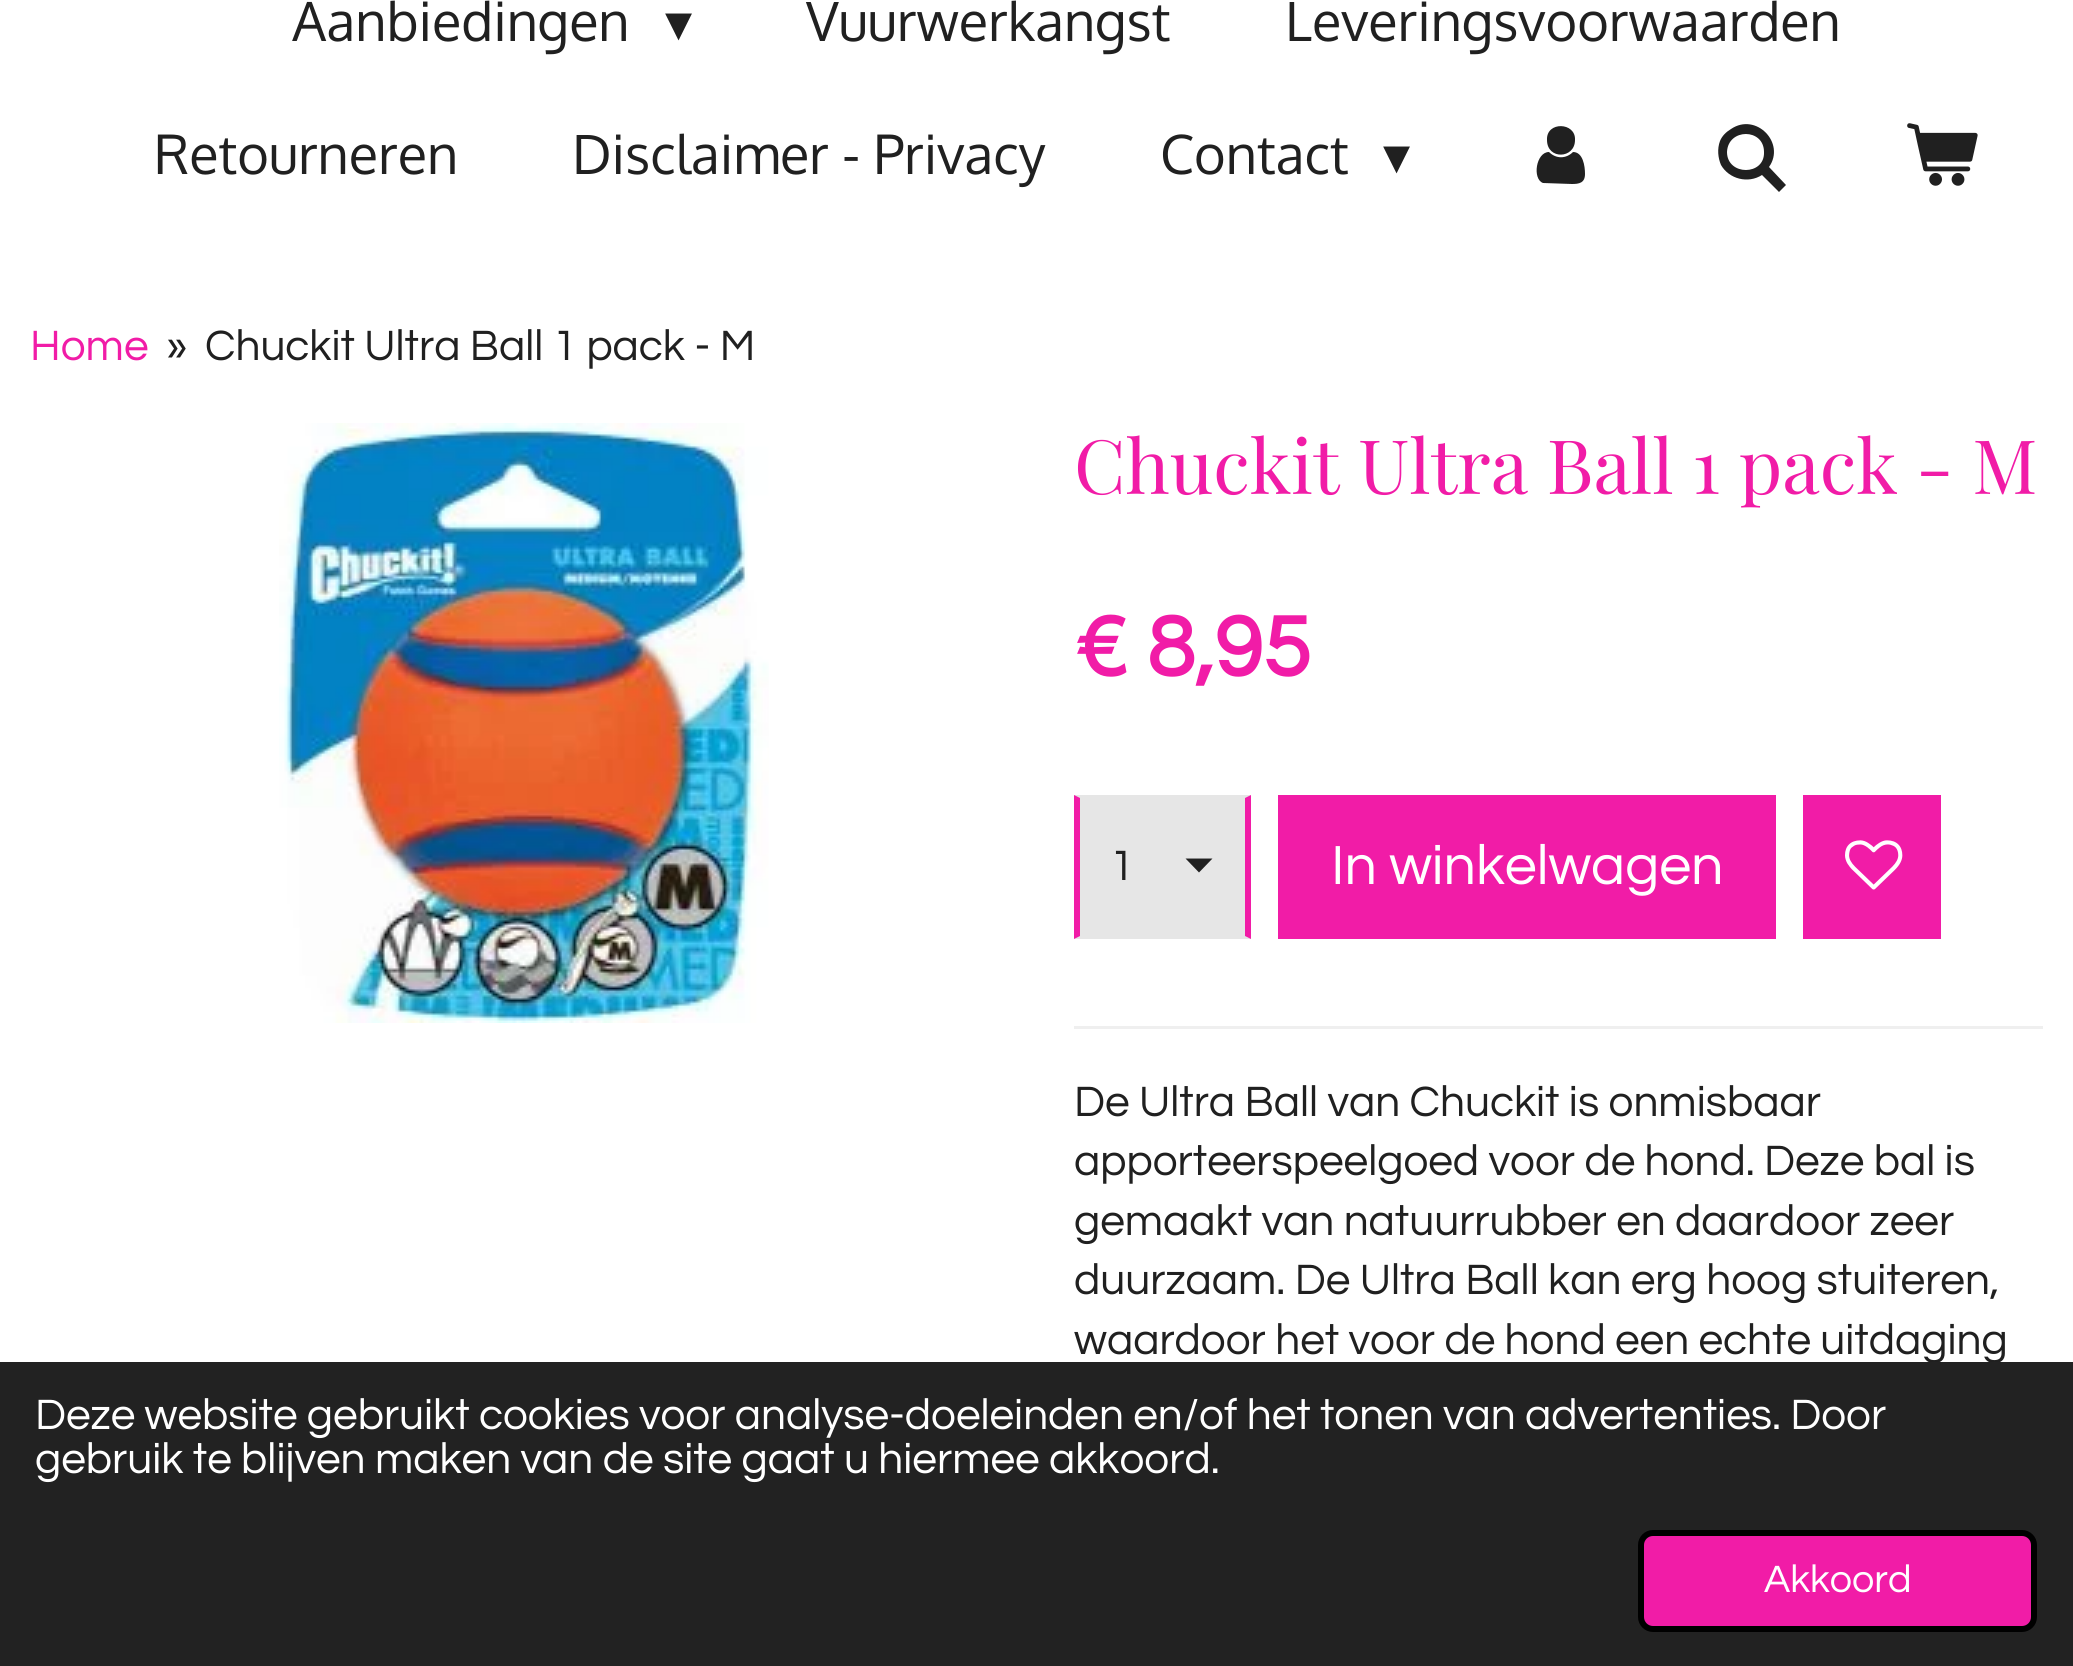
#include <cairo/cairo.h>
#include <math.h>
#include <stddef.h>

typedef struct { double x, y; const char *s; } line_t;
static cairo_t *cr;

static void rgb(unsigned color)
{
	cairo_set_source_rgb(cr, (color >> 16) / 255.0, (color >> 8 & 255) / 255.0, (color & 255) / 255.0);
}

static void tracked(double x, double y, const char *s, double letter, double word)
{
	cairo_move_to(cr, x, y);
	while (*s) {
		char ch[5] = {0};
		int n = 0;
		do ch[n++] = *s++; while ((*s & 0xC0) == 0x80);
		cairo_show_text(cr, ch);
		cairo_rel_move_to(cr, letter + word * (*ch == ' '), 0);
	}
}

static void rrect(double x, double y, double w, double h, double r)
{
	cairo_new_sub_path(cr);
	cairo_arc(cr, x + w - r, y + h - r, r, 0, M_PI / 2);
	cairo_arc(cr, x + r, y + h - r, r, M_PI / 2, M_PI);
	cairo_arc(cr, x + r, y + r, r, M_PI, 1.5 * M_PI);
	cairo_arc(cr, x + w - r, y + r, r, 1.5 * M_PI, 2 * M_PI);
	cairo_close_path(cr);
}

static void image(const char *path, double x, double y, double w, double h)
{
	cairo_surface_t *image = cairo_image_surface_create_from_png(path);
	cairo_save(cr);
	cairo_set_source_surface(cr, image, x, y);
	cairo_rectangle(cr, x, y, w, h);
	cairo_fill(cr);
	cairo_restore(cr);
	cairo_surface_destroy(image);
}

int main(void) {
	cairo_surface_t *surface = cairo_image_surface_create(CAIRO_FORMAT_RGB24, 2073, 1666);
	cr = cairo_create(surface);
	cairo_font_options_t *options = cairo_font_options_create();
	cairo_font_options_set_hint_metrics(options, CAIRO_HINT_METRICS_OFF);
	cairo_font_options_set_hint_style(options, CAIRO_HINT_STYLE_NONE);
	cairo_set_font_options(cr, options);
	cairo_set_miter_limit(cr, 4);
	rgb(0xffffff);
	cairo_paint(cr);
	rgb(0x202020);
	cairo_new_path(cr);
	cairo_move_to(cr, 1585, 174);
	cairo_curve_to(cr, 1585, 183, 1579, 184, 1572, 184);
	cairo_line_to(cr, 1543, 183);
	cairo_curve_to(cr, 1532, 179, 1536, 152, 1549, 152);
	cairo_curve_to(cr, 1556, 159, 1566, 159, 1573, 152);
	cairo_curve_to(cr, 1583, 152, 1585, 166, 1585, 174);
	cairo_close_path(cr);
	cairo_move_to(cr, 1575, 140);
	cairo_curve_to(cr, 1575, 159, 1547, 160, 1547, 140);
	cairo_curve_to(cr, 1546, 121, 1576, 122, 1575, 140);
	cairo_close_path(cr);
	cairo_fill(cr);
	cairo_new_path(cr);
	cairo_move_to(cr, 1769, 167);
	cairo_line_to(cr, 1786, 185);
	cairo_line_to(cr, 1779, 192);
	cairo_line_to(cr, 1762, 175);
	cairo_curve_to(cr, 1748, 184, 1729, 179, 1721, 165);
	cairo_curve_to(cr, 1718, 158, 1717, 149, 1720, 141);
	cairo_curve_to(cr, 1722, 136, 1726, 132, 1731, 129);
	cairo_curve_to(cr, 1756, 112, 1786, 143, 1769, 167);
	cairo_close_path(cr);
	cairo_move_to(cr, 1764, 152);
	cairo_curve_to(cr, 1764, 128, 1728, 128, 1727, 152);
	cairo_curve_to(cr, 1727, 176, 1765, 176, 1764, 152);
	cairo_close_path(cr);
	cairo_fill(cr);
	image("img/1.png", 1907, 123, 71, 63);
	image("img/2.png", 279, 423, 490, 600);
	rgb(0xe6e6e6);
	cairo_rectangle(cr, 1074, 795, 177, 144);
	cairo_fill(cr);
	rgb(0x202020);
	cairo_new_path(cr);
	cairo_move_to(cr, 1199, 872.5);
	cairo_line_to(cr, 1185.5, 858.5);
	cairo_line_to(cr, 1212.5, 858.5);
	cairo_close_path(cr);
	cairo_fill(cr);
	rgb(0xf11ca7);
	cairo_new_path(cr);
	cairo_move_to(cr, 1251, 795);
	cairo_line_to(cr, 1251, 939);
	cairo_line_to(cr, 1245, 936);
	cairo_line_to(cr, 1245, 798);
	cairo_close_path(cr);
	cairo_fill(cr);
	cairo_new_path(cr);
	cairo_move_to(cr, 1074, 939);
	cairo_line_to(cr, 1074, 795);
	cairo_line_to(cr, 1080, 798);
	cairo_line_to(cr, 1080, 936);
	cairo_close_path(cr);
	cairo_fill(cr);
	cairo_rectangle(cr, 1278, 795, 498, 144);
	cairo_fill(cr);
	cairo_rectangle(cr, 1803, 795, 138, 144);
	cairo_fill(cr);
	image("img/3.png", 1845, 840, 58, 50);
	rgb(0xefefef);
	cairo_rectangle(cr, 1074, 1026, 969, 3);
	cairo_fill(cr);
	cairo_select_font_face(cr, "Oxygen", CAIRO_FONT_SLANT_NORMAL, CAIRO_FONT_WEIGHT_NORMAL);
	cairo_set_font_size(cr, 54);
	rgb(0x202020);
	cairo_move_to(cr, 292, 41);
	cairo_show_text(cr, "Aanbiedingen");
	cairo_select_font_face(cr, "DejaVu Sans", CAIRO_FONT_SLANT_NORMAL, CAIRO_FONT_WEIGHT_NORMAL);
	cairo_move_to(cr, 665, 41);
	cairo_show_text(cr, "▾");
	cairo_select_font_face(cr, "Oxygen", CAIRO_FONT_SLANT_NORMAL, CAIRO_FONT_WEIGHT_NORMAL);
	{
		static const line_t items[] = {
			{806, 41, "Vuurwerkangst"},
			{1285, 41, "Leveringsvoorwaarden"},
			{154, 174, "Retourneren"},
			{572, 174, "Disclaimer - Privacy"},
			{1160, 174, "Contact"},
		};
		for (size_t i = 0; i < sizeof items / sizeof *items; i++) {
			cairo_move_to(cr, items[i].x, items[i].y);
			cairo_show_text(cr, items[i].s);
		}
	}
	cairo_select_font_face(cr, "DejaVu Sans", CAIRO_FONT_SLANT_NORMAL, CAIRO_FONT_WEIGHT_NORMAL);
	cairo_move_to(cr, 1383, 174);
	cairo_show_text(cr, "▾");
	cairo_select_font_face(cr, "Questrial", CAIRO_FONT_SLANT_NORMAL, CAIRO_FONT_WEIGHT_NORMAL);
	cairo_set_font_size(cr, 44.1);
	rgb(0xf11ca7);
	cairo_move_to(cr, 30, 360);
	cairo_show_text(cr, "Home");
	rgb(0x202020);
	cairo_move_to(cr, 166, 360);
	cairo_show_text(cr, "»");
	cairo_move_to(cr, 205, 360);
	cairo_show_text(cr, "Chuckit Ultra Ball 1 pack - M");
	cairo_select_font_face(cr, "Playfair Display", CAIRO_FONT_SLANT_NORMAL, CAIRO_FONT_WEIGHT_NORMAL);
	cairo_set_font_size(cr, 75);
	rgb(0xf11ca7);
	cairo_move_to(cr, 1074, 494);
	cairo_show_text(cr, "Chuckit Ultra Ball 1 pack - M");
	cairo_select_font_face(cr, "Questrial", CAIRO_FONT_SLANT_NORMAL, CAIRO_FONT_WEIGHT_BOLD);
	cairo_set_font_size(cr, 88);
	cairo_move_to(cr, 1074, 676);
	cairo_show_text(cr, "€ 8,95");
	cairo_select_font_face(cr, "Questrial", CAIRO_FONT_SLANT_NORMAL, CAIRO_FONT_WEIGHT_NORMAL);
	cairo_set_font_size(cr, 44.1);
	rgb(0x202020);
	cairo_move_to(cr, 1110, 880);
	cairo_show_text(cr, "1");
	cairo_set_font_size(cr, 57.25);
	rgb(0xffffff);
	cairo_move_to(cr, 1331, 884);
	cairo_show_text(cr, "In winkelwagen");
	cairo_set_font_size(cr, 44.1);
	rgb(0x202020);
	{
		static const line_t items[] = {
			{1074, 1116, "De Ultra Ball van Chuckit is onmisbaar"},
			{1074, 1175, "apporteerspeelgoed voor de hond. Deze bal is"},
			{1074, 1235, "gemaakt van natuurrubber en daardoor zeer"},
			{1074, 1294, "duurzaam. De Ultra Ball kan erg hoog stuiteren,"},
			{1074, 1354, "waardoor het voor de hond een echte uitdaging"},
		};
		for (size_t i = 0; i < sizeof items / sizeof *items; i++) {
			cairo_move_to(cr, items[i].x, items[i].y);
			cairo_show_text(cr, items[i].s);
		}
	}
	rgb(0x222222);
	cairo_rectangle(cr, 0, 1362, 2073, 304);
	cairo_fill(cr);
	rgb(0xffffff);
	tracked(35, 1429, "Deze website gebruikt cookies voor analyse-doeleinden en/of het tonen van advertenties. Door", 0, -0.1);
	cairo_move_to(cr, 35, 1473);
	cairo_show_text(cr, "gebruik te blijven maken van de site gaat u hiermee akkoord.");
	rgb(0xf11ca7);
	rrect(1641, 1533, 393, 96, 12);
	cairo_fill_preserve(cr);
	rgb(0x000000);
	cairo_set_line_width(cr, 6);
	cairo_stroke(cr);
	cairo_set_font_size(cr, 39.5);
	rgb(0xffffff);
	cairo_move_to(cr, 1764, 1592);
	cairo_show_text(cr, "Akkoord");
	cairo_surface_write_to_png(surface, "page.png");
	cairo_font_options_destroy(options);
	cairo_destroy(cr);
	cairo_surface_destroy(surface);
	return 0;
}
